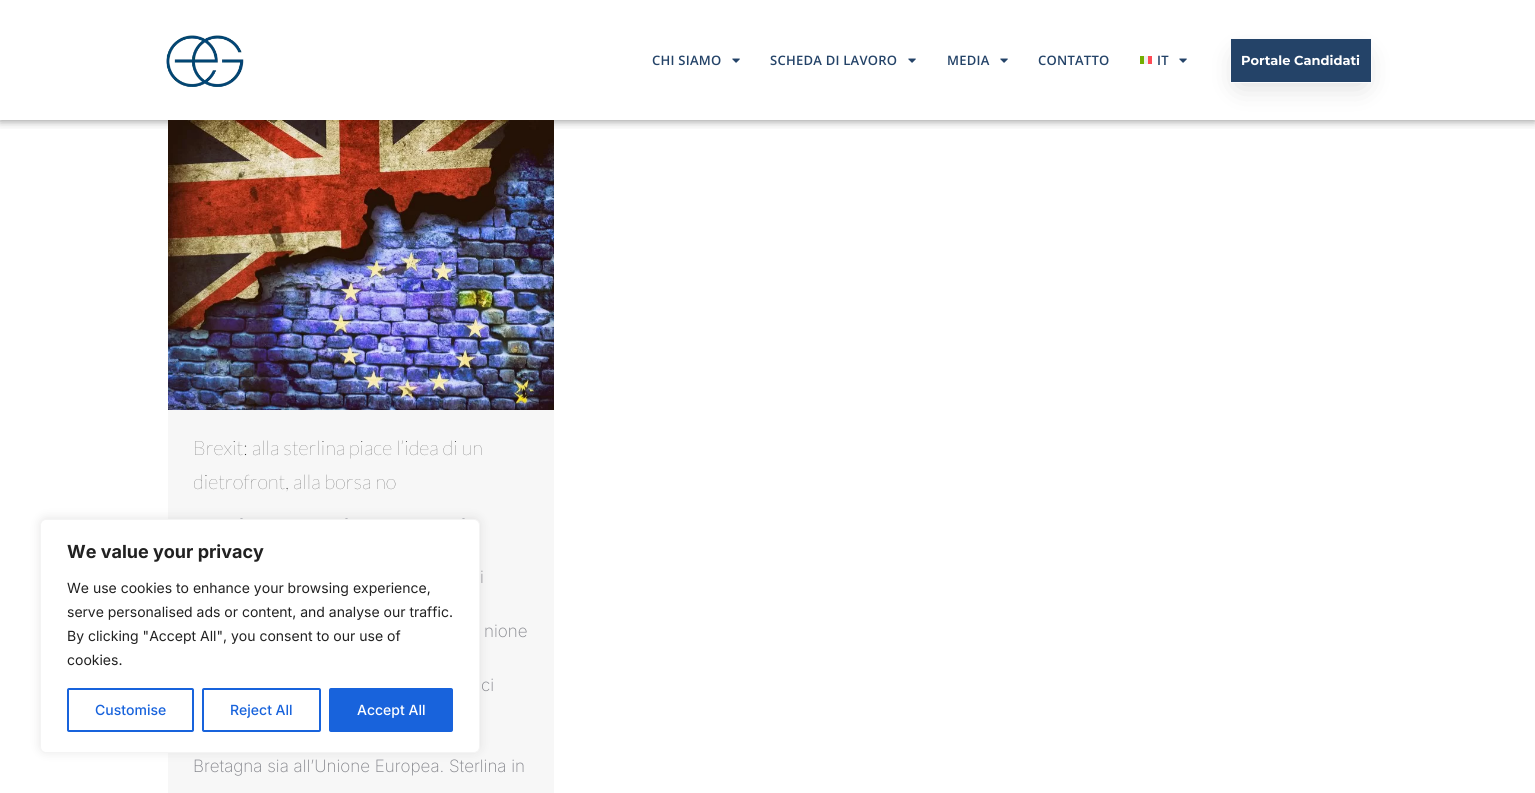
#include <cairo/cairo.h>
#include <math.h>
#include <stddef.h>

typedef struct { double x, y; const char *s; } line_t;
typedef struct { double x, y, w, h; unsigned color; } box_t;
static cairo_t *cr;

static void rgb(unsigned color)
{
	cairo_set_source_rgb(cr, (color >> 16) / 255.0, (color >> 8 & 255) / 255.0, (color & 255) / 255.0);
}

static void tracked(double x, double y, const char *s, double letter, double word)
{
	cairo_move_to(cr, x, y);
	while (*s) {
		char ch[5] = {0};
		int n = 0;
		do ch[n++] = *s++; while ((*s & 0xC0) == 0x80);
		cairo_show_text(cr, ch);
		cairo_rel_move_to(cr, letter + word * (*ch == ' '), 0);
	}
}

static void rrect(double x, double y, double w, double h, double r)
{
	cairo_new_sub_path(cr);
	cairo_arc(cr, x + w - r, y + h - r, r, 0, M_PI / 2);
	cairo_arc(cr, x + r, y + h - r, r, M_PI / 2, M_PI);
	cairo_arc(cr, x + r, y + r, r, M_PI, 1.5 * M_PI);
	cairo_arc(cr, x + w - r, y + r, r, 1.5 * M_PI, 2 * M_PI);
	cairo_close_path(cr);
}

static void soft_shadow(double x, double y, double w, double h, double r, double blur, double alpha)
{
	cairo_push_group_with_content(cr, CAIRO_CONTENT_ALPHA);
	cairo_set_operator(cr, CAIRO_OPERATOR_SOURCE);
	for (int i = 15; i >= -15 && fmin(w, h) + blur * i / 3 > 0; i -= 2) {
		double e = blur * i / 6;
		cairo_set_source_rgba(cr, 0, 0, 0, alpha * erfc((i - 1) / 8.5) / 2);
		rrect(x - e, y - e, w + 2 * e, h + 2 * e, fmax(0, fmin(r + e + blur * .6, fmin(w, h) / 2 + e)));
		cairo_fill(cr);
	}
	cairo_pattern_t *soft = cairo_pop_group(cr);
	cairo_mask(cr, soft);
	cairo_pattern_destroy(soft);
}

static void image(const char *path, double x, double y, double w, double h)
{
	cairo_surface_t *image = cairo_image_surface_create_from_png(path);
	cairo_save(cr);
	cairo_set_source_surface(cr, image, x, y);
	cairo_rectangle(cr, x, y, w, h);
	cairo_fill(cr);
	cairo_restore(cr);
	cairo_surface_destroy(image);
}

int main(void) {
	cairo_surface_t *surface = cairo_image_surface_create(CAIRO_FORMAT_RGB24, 1535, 793);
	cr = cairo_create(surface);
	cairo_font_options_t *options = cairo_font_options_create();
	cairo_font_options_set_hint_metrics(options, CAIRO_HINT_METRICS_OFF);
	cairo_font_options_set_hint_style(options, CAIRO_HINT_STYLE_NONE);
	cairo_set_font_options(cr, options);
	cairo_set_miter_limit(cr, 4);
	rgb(0xffffff);
	cairo_paint(cr);
	cairo_save(cr);
	cairo_rectangle(cr, 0, 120, 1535, 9);
	cairo_clip(cr);
	rgb(0x000000);
	soft_shadow(0, 0, 1535, 120, 0, 5, 0.5);
	cairo_restore(cr);
	image("img/1.png", 166, 35, 78, 52);
	image("img/2.png", 732, 58, 8, 5);
	image("img/2.png", 908, 58, 8, 5);
	image("img/2.png", 1000, 58, 8, 5);
	{
		static const box_t items[] = {
			{1140, 56, 12, 8, 0xf0f0f0},
			{1148, 56, 4, 8, 0xff4b55},
			{1140, 56, 4, 8, 0x73af00},
		};
		for (size_t i = 0; i < sizeof items / sizeof *items; i++) {
			rgb(items[i].color);
			cairo_rectangle(cr, items[i].x, items[i].y, items[i].w, items[i].h);
			cairo_fill(cr);
		}
	}
	image("img/2.png", 1179, 58, 8, 5);
	rgb(0x000000);
	soft_shadow(1239, 57, 124, 27, 0, 15, 0.16);
	rgb(0x244368);
	cairo_rectangle(cr, 1230.5, 38.5, 141, 44);
	cairo_fill_preserve(cr);
	rgb(0xfbfbfc);
	cairo_set_line_width(cr, 1);
	cairo_stroke(cr);
	rgb(0xf7f7f7);
	cairo_rectangle(cr, 168, 410, 386, 383);
	cairo_fill(cr);
	image("img/3.png", 168, 120, 386, 290);
	rgb(0xb4b5bb);
	cairo_arc(cr, 241.5, 519.5, 1.5, 0, 2 * M_PI);
	cairo_fill(cr);
	cairo_arc(cr, 346.5, 519.5, 1.5, 0, 2 * M_PI);
	cairo_fill(cr);
	cairo_arc(cr, 463.5, 519.5, 1.5, 0, 2 * M_PI);
	cairo_fill(cr);
	rgb(0xacabab);
	soft_shadow(40, 518, 440, 234, 6, 5, 0.3);
	rgb(0xffffff);
	rrect(40.5, 519.5, 439, 233, 5.5);
	cairo_fill_preserve(cr);
	rgb(0xf4f4f4);
	cairo_stroke(cr);
	rrect(68, 689, 125, 42, 1);
	rgb(0x1863dc);
	cairo_set_line_width(cr, 2);
	cairo_stroke(cr);
	rrect(203, 689, 117, 42, 1);
	cairo_stroke(cr);
	rrect(330, 689, 122, 42, 1);
	cairo_fill_preserve(cr);
	cairo_stroke(cr);
	cairo_select_font_face(cr, "Open Sans SemiBold", CAIRO_FONT_SLANT_NORMAL, CAIRO_FONT_WEIGHT_NORMAL);
	cairo_set_font_size(cr, 13);
	rgb(0x244368);
	{
		static const line_t items[] = {
			{652, 65, "CHI SIAMO"},
			{770, 65, "SCHEDA DI LAVORO"},
			{947, 65, "MEDIA"},
			{1038, 65, "CONTATTO"},
			{1157, 65, "IT"},
		};
		for (size_t i = 0; i < sizeof items / sizeof *items; i++) {
			tracked(items[i].x, items[i].y, items[i].s, 0.25, 0);
		}
	}
	cairo_select_font_face(cr, "Montserrat", CAIRO_FONT_SLANT_NORMAL, CAIRO_FONT_WEIGHT_BOLD);
	rgb(0xffffff);
	cairo_move_to(cr, 1241, 65);
	cairo_show_text(cr, "Portale Candidati");
	cairo_select_font_face(cr, "Lato Thin", CAIRO_FONT_SLANT_NORMAL, CAIRO_FONT_WEIGHT_NORMAL);
	cairo_set_font_size(cr, 20);
	rgb(0x333333);
	cairo_move_to(cr, 193, 455);
	cairo_show_text(cr, "Brexit: alla sterlina piace l’idea di un");
	cairo_move_to(cr, 193, 489);
	cairo_show_text(cr, "dietrofront, alla borsa no");
	cairo_select_font_face(cr, "Inter ExtraLight", CAIRO_FONT_SLANT_NORMAL, CAIRO_FONT_WEIGHT_NORMAL);
	cairo_set_font_size(cr, 17);
	rgb(0x85868c);
	{
		static const line_t items[] = {
			{480, 583, "i"},
			{484, 637, "nione"},
			{481, 691, "ci"},
			{193, 772, "Bretagna sia all’Unione Europea. Sterlina in"},
		};
		for (size_t i = 0; i < sizeof items / sizeof *items; i++) {
			cairo_move_to(cr, items[i].x, items[i].y);
			cairo_show_text(cr, items[i].s);
		}
	}
	cairo_select_font_face(cr, "Inter", CAIRO_FONT_SLANT_NORMAL, CAIRO_FONT_WEIGHT_BOLD);
	cairo_set_font_size(cr, 18);
	rgb(0x212121);
	cairo_move_to(cr, 67, 558);
	cairo_show_text(cr, "We value your privacy");
	cairo_select_font_face(cr, "Inter", CAIRO_FONT_SLANT_NORMAL, CAIRO_FONT_WEIGHT_NORMAL);
	cairo_set_font_size(cr, 14);
	{
		static const line_t items[] = {
			{67, 593, "We use cookies to enhance your browsing experience,"},
			{67, 617, "serve personalised ads or content, and analyse our traffic."},
			{67, 641, "By clicking \"Accept All\", you consent to our use of"},
			{67, 665, "cookies."},
		};
		for (size_t i = 0; i < sizeof items / sizeof *items; i++) {
			cairo_move_to(cr, items[i].x, items[i].y);
			cairo_show_text(cr, items[i].s);
		}
	}
	cairo_select_font_face(cr, "Inter Medium", CAIRO_FONT_SLANT_NORMAL, CAIRO_FONT_WEIGHT_NORMAL);
	rgb(0x1863dc);
	cairo_move_to(cr, 95, 715);
	cairo_show_text(cr, "Customise");
	cairo_move_to(cr, 230, 715);
	cairo_show_text(cr, "Reject All");
	rgb(0xffffff);
	cairo_move_to(cr, 357, 715);
	cairo_show_text(cr, "Accept All");
	cairo_surface_write_to_png(surface, "page.png");
	cairo_font_options_destroy(options);
	cairo_destroy(cr);
	cairo_surface_destroy(surface);
	return 0;
}
